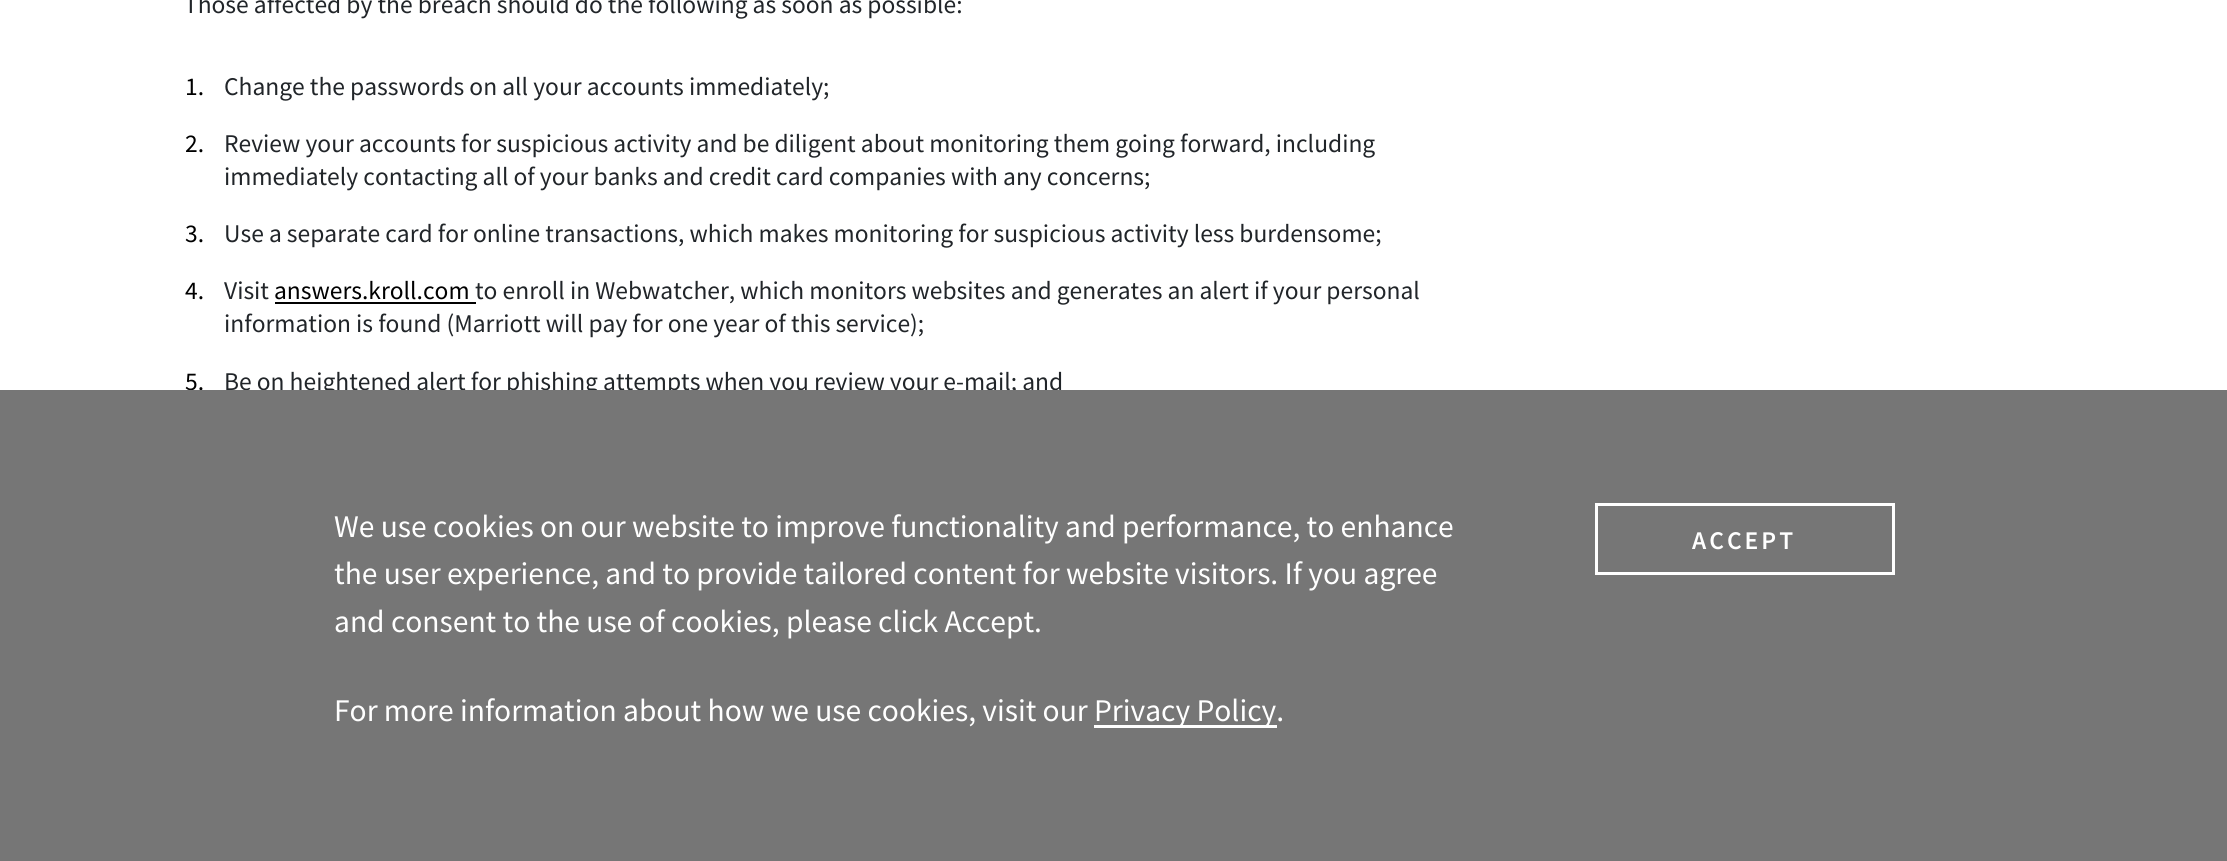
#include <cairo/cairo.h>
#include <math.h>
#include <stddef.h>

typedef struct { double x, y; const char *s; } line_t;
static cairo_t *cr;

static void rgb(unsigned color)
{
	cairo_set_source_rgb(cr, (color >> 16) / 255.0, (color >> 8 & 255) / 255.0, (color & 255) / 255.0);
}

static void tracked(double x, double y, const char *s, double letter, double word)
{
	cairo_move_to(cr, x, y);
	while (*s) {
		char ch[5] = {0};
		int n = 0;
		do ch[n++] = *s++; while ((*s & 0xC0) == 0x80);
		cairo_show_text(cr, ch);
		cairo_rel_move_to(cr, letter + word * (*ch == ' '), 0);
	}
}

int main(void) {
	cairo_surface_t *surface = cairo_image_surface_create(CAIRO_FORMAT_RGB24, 2227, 861);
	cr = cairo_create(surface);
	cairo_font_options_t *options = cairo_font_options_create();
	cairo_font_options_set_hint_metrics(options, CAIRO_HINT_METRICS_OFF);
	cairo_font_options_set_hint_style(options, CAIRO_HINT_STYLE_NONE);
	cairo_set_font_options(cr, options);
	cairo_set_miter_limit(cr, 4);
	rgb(0xffffff);
	cairo_paint(cr);
	rgb(0x000000);
	cairo_rectangle(cr, 275, 302, 201, 2);
	cairo_fill(cr);
	cairo_select_font_face(cr, "Source Sans Pro", CAIRO_FONT_SLANT_NORMAL, CAIRO_FONT_WEIGHT_NORMAL);
	cairo_set_font_size(cr, 25.5);
	rgb(0x212529);
	cairo_move_to(cr, 184, 13);
	cairo_show_text(cr, "Those affected by the breach should do the following as soon as possible:");
	rgb(0x000000);
	cairo_move_to(cr, 185, 95);
	cairo_show_text(cr, "1.");
	rgb(0x212529);
	cairo_move_to(cr, 224, 95);
	cairo_show_text(cr, "Change the passwords on all your accounts immediately;");
	rgb(0x000000);
	cairo_move_to(cr, 185, 152);
	cairo_show_text(cr, "2.");
	rgb(0x212529);
	cairo_move_to(cr, 224, 152);
	cairo_show_text(cr, "Review your accounts for suspicious activity and be diligent about monitoring them going forward, including");
	cairo_move_to(cr, 224, 185);
	cairo_show_text(cr, "immediately contacting all of your banks and credit card companies with any concerns;");
	rgb(0x000000);
	cairo_move_to(cr, 185, 242);
	cairo_show_text(cr, "3.");
	rgb(0x212529);
	cairo_move_to(cr, 224, 242);
	cairo_show_text(cr, "Use a separate card for online transactions, which makes monitoring for suspicious activity less burdensome;");
	rgb(0x000000);
	cairo_move_to(cr, 185, 299);
	cairo_show_text(cr, "4.");
	rgb(0x212529);
	cairo_move_to(cr, 224, 299);
	cairo_show_text(cr, "Visit");
	rgb(0x000000);
	cairo_move_to(cr, 274, 299);
	cairo_show_text(cr, "answers.kroll.com");
	rgb(0x212529);
	cairo_move_to(cr, 475, 299);
	cairo_show_text(cr, "to enroll in Webwatcher, which monitors websites and generates an alert if your personal");
	cairo_move_to(cr, 224, 332);
	cairo_show_text(cr, "information is found (Marriott will pay for one year of this service);");
	rgb(0x000000);
	cairo_move_to(cr, 185, 390);
	cairo_show_text(cr, "5.");
	rgb(0x212529);
	cairo_move_to(cr, 224, 390);
	cairo_show_text(cr, "Be on heightened alert for phishing attempts when you review your e-mail; and");
	rgb(0x767676);
	cairo_rectangle(cr, 0, 390, 2227, 471);
	cairo_fill(cr);
	cairo_set_font_size(cr, 31.5);
	rgb(0xffffff);
	{
		static const line_t items[] = {
			{334, 537, "We use cookies on our website to improve functionality and performance, to enhance"},
			{334, 584, "the user experience, and to provide tailored content for website visitors. If you agree"},
			{334, 632, "and consent to the use of cookies, please click Accept."},
		};
		for (size_t i = 0; i < sizeof items / sizeof *items; i++) {
			cairo_move_to(cr, items[i].x, items[i].y);
			cairo_show_text(cr, items[i].s);
		}
	}
	cairo_rectangle(cr, 1596.5, 504.5, 297, 69);
	cairo_set_line_width(cr, 3);
	cairo_stroke(cr);
	cairo_select_font_face(cr, "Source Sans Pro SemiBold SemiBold", CAIRO_FONT_SLANT_NORMAL, CAIRO_FONT_WEIGHT_NORMAL);
	cairo_set_font_size(cr, 25.5);
	tracked(1692, 549, "ACCEPT", 3, 0);
	cairo_select_font_face(cr, "Source Sans Pro", CAIRO_FONT_SLANT_NORMAL, CAIRO_FONT_WEIGHT_NORMAL);
	cairo_set_font_size(cr, 31.5);
	cairo_move_to(cr, 334, 721);
	cairo_show_text(cr, "For more information about how we use cookies, visit our");
	cairo_rectangle(cr, 1094, 725, 183, 3);
	cairo_fill(cr);
	cairo_move_to(cr, 1094, 721);
	cairo_show_text(cr, "Privacy Policy.");
	cairo_surface_write_to_png(surface, "page.png");
	cairo_font_options_destroy(options);
	cairo_destroy(cr);
	cairo_surface_destroy(surface);
	return 0;
}
